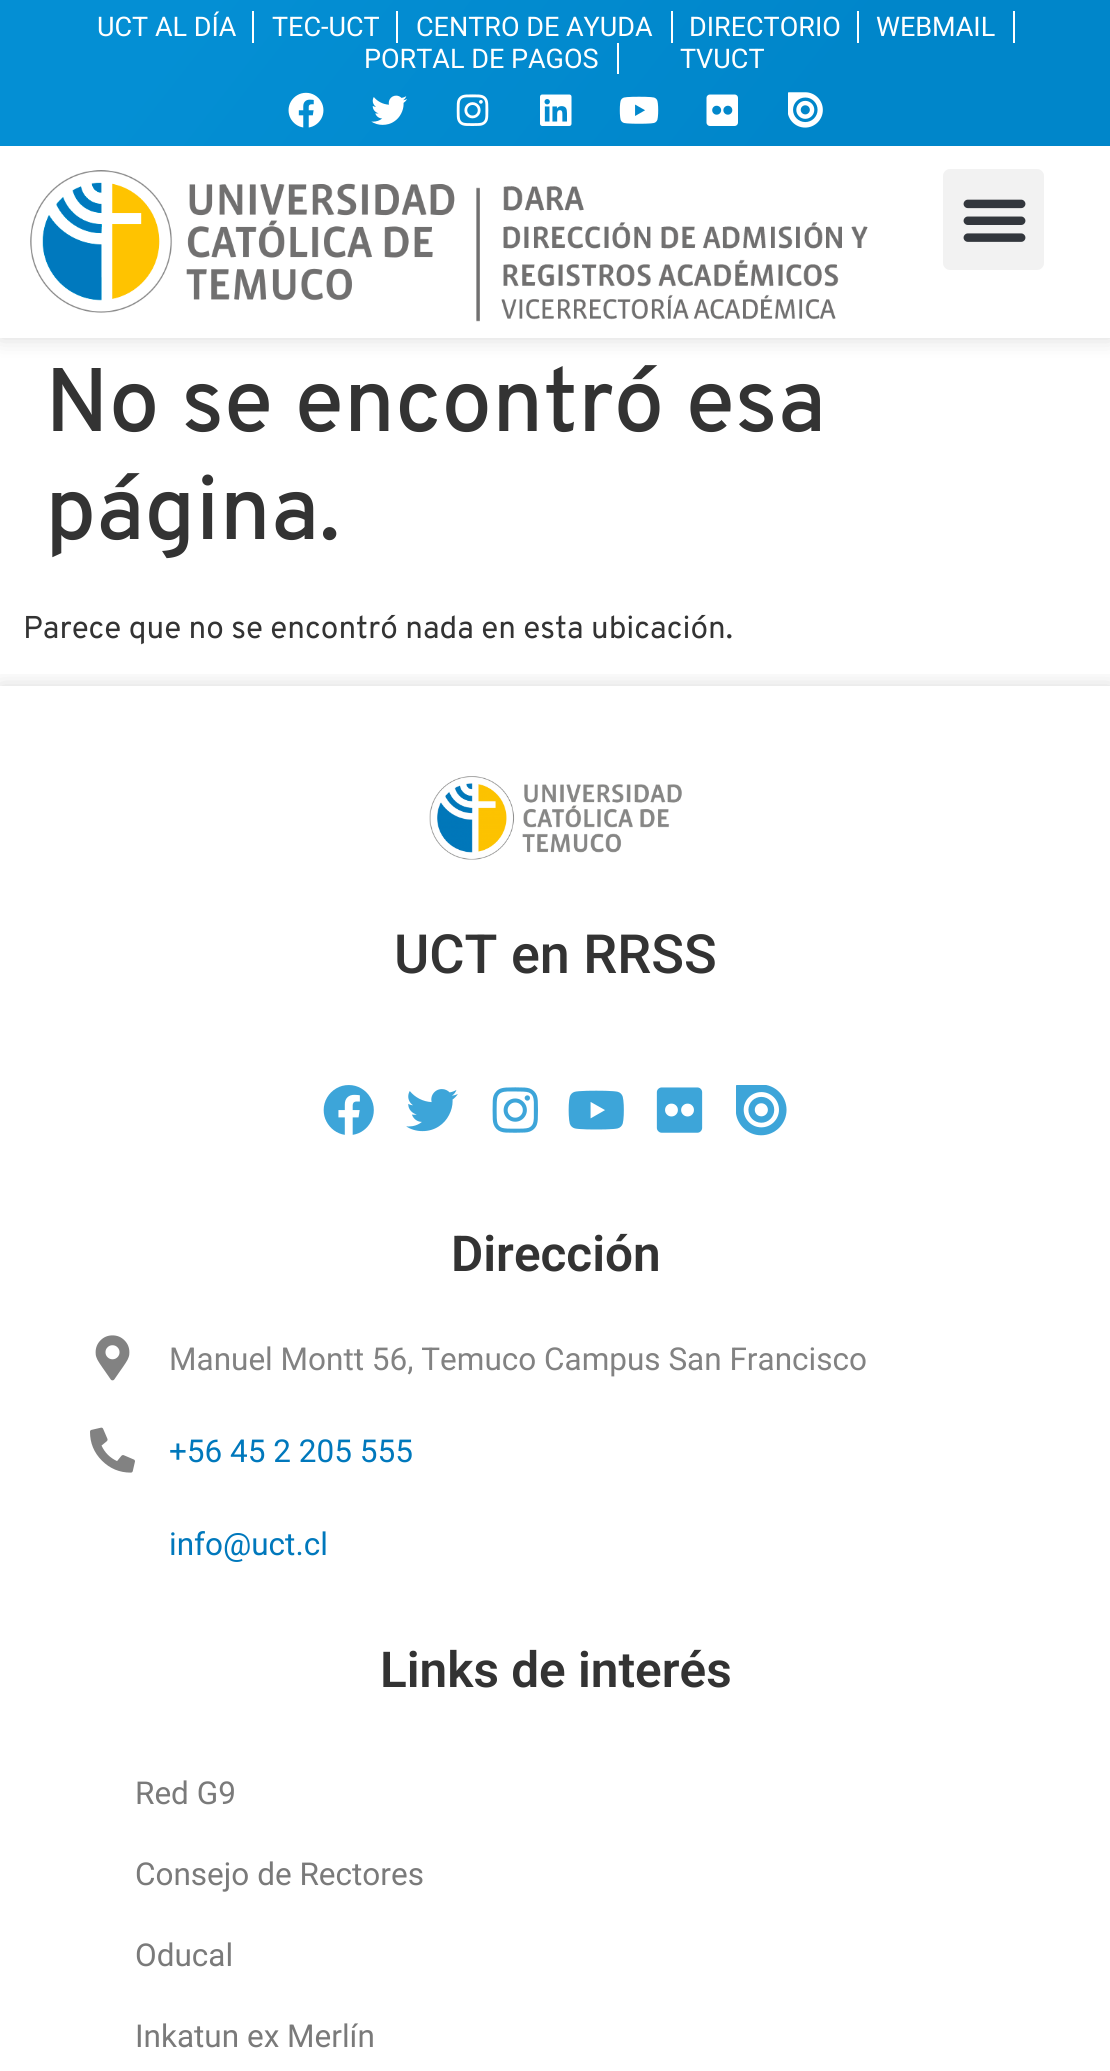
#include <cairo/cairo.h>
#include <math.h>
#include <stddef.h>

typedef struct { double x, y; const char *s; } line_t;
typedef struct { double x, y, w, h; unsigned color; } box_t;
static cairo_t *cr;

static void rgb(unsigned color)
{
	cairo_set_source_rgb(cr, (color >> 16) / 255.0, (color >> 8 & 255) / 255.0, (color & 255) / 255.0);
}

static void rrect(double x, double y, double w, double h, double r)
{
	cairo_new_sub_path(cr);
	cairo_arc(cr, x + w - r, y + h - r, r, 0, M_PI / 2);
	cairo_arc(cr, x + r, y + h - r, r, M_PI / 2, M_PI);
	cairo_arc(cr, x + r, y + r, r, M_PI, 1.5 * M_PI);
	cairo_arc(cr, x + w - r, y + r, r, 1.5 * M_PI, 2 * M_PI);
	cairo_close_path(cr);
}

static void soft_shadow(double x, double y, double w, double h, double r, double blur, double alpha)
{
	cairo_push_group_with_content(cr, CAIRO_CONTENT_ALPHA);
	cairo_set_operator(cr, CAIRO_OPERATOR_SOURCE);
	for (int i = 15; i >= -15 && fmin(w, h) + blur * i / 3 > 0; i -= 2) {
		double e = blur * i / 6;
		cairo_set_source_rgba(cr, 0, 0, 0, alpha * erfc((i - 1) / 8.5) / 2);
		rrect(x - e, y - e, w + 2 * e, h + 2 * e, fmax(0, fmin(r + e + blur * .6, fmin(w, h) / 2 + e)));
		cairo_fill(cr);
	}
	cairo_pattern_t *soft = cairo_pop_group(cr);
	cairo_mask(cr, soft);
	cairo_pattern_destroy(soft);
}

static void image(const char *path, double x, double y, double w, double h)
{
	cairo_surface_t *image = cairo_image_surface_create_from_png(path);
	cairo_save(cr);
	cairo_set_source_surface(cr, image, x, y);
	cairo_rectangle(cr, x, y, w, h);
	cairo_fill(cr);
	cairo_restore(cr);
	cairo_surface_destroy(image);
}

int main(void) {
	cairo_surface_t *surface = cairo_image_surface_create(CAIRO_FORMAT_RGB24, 1110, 2071);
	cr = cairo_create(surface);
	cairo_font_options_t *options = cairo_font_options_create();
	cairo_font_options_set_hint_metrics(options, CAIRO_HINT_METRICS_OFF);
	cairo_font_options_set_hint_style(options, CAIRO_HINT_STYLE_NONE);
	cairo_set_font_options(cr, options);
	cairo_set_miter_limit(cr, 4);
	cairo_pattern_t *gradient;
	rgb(0xffffff);
	cairo_paint(cr);
	rgb(0x000000);
	soft_shadow(0, 0, 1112, 338, 0, 11, 0.15);
	rgb(0xffffff);
	cairo_rectangle(cr, 0, 146, 1110, 192);
	cairo_fill(cr);
	gradient = cairo_pattern_create_linear(175, -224, 936, 370);
	cairo_pattern_add_color_stop_rgba(gradient, 0.16, 0.016, 0.561, 0.831, 1);
	cairo_pattern_add_color_stop_rgba(gradient, 0.74, 0, 0.525, 0.792, 1);
	cairo_set_source(cr, gradient);
	cairo_pattern_destroy(gradient);
	cairo_rectangle(cr, 0, 0, 1110, 146);
	cairo_fill(cr);
	{
		static const box_t items[] = {
			{252, 11, 2, 32, 0xffffff},
			{396, 11, 2, 32, 0xffffff},
			{671, 11, 2, 32, 0xffffff},
			{857, 11, 2, 32, 0xffffff},
			{1013, 11, 2, 32, 0xffffff},
			{617, 43, 2, 31, 0xffffff},
		};
		for (size_t i = 0; i < sizeof items / sizeof *items; i++) {
			rgb(items[i].color);
			cairo_rectangle(cr, items[i].x, items[i].y, items[i].w, items[i].h);
			cairo_fill(cr);
		}
	}
	image("img/1.png", 288, 92, 36, 36);
	image("img/2.png", 371, 95, 37, 30);
	image("img/3.png", 456, 94, 33, 32);
	image("img/4.png", 540, 94, 32, 32);
	image("img/5.png", 619, 96, 40, 28);
	image("img/6.png", 706, 94, 32, 32);
	image("img/7.png", 788, 92, 35, 36);
	image("img/8.png", 30, 170, 838, 152);
	rgb(0xf2f2f2);
	rrect(943, 169, 101, 101, 7);
	cairo_fill(cr);
	image("img/9.png", 963, 199, 63, 43);
	cairo_save(cr);
	cairo_rectangle(cr, 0, 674, 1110, 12);
	cairo_clip(cr);
	rgb(0x000000);
	soft_shadow(0, 686, 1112, 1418, 0, 11, 0.15);
	cairo_restore(cr);
	image("img/10.png", 429, 776, 253, 84);
	image("img/11.png", 323, 1085, 51, 50);
	image("img/12.png", 406, 1089, 52, 43);
	image("img/13.png", 492, 1087, 46, 46);
	image("img/14.png", 568, 1090, 56, 40);
	image("img/15.png", 656, 1087, 47, 46);
	image("img/16.png", 736, 1085, 51, 51);
	image("img/17.png", 95, 1335, 35, 46);
	image("img/18.png", 90, 1427, 45, 46);
	cairo_select_font_face(cr, "Roboto", CAIRO_FONT_SLANT_NORMAL, CAIRO_FONT_WEIGHT_NORMAL);
	cairo_set_font_size(cr, 27);
	rgb(0xffffff);
	{
		static const line_t items[] = {
			{97, 36, "UCT AL DÍA"},
			{272, 36, "TEC-UCT"},
			{416, 36, "CENTRO DE AYUDA"},
			{689, 36, "DIRECTORIO"},
			{876, 36, "WEBMAIL"},
			{364, 68, "PORTAL DE PAGOS"},
			{680, 68, "TVUCT"},
		};
		for (size_t i = 0; i < sizeof items / sizeof *items; i++) {
			cairo_move_to(cr, items[i].x, items[i].y);
			cairo_show_text(cr, items[i].s);
		}
	}
	cairo_select_font_face(cr, "Overpass Medium", CAIRO_FONT_SLANT_NORMAL, CAIRO_FONT_WEIGHT_NORMAL);
	cairo_set_font_size(cr, 90);
	rgb(0x333333);
	cairo_move_to(cr, 45, 431);
	cairo_show_text(cr, "No se encontró esa");
	cairo_move_to(cr, 45, 539);
	cairo_show_text(cr, "página.");
	cairo_select_font_face(cr, "Overpass", CAIRO_FONT_SLANT_NORMAL, CAIRO_FONT_WEIGHT_NORMAL);
	cairo_set_font_size(cr, 31.5);
	cairo_move_to(cr, 23, 638);
	cairo_show_text(cr, "Parece que no se encontró nada en esta ubicación.");
	cairo_select_font_face(cr, "Roboto Medium", CAIRO_FONT_SLANT_NORMAL, CAIRO_FONT_WEIGHT_NORMAL);
	cairo_set_font_size(cr, 54);
	cairo_move_to(cr, 394, 973);
	cairo_show_text(cr, "UCT en RRSS");
	cairo_select_font_face(cr, "Roboto SemiBold", CAIRO_FONT_SLANT_NORMAL, CAIRO_FONT_WEIGHT_NORMAL);
	cairo_set_font_size(cr, 49.5);
	cairo_move_to(cr, 451, 1271);
	cairo_show_text(cr, "Dirección");
	cairo_select_font_face(cr, "Roboto", CAIRO_FONT_SLANT_NORMAL, CAIRO_FONT_WEIGHT_NORMAL);
	cairo_set_font_size(cr, 31.5);
	rgb(0x828282);
	cairo_move_to(cr, 169, 1370);
	cairo_show_text(cr, "Manuel Montt 56, Temuco Campus San Francisco");
	rgb(0x0078bc);
	cairo_move_to(cr, 169, 1462);
	cairo_show_text(cr, "+56 45 2 205 555");
	cairo_move_to(cr, 169, 1555);
	cairo_show_text(cr, "info@uct.cl");
	cairo_select_font_face(cr, "Roboto SemiBold", CAIRO_FONT_SLANT_NORMAL, CAIRO_FONT_WEIGHT_NORMAL);
	cairo_set_font_size(cr, 49.5);
	rgb(0x333333);
	cairo_move_to(cr, 380, 1687);
	cairo_show_text(cr, "Links de interés");
	cairo_select_font_face(cr, "Roboto", CAIRO_FONT_SLANT_NORMAL, CAIRO_FONT_WEIGHT_NORMAL);
	cairo_set_font_size(cr, 31.5);
	rgb(0x7a7a7a);
	{
		static const line_t items[] = {
			{135, 1804, "Red G9"},
			{135, 1885, "Consejo de Rectores"},
			{135, 1966, "Oducal"},
			{135, 2047, "Inkatun ex Merlín"},
		};
		for (size_t i = 0; i < sizeof items / sizeof *items; i++) {
			cairo_move_to(cr, items[i].x, items[i].y);
			cairo_show_text(cr, items[i].s);
		}
	}
	cairo_surface_write_to_png(surface, "page.png");
	cairo_font_options_destroy(options);
	cairo_destroy(cr);
	cairo_surface_destroy(surface);
	return 0;
}
